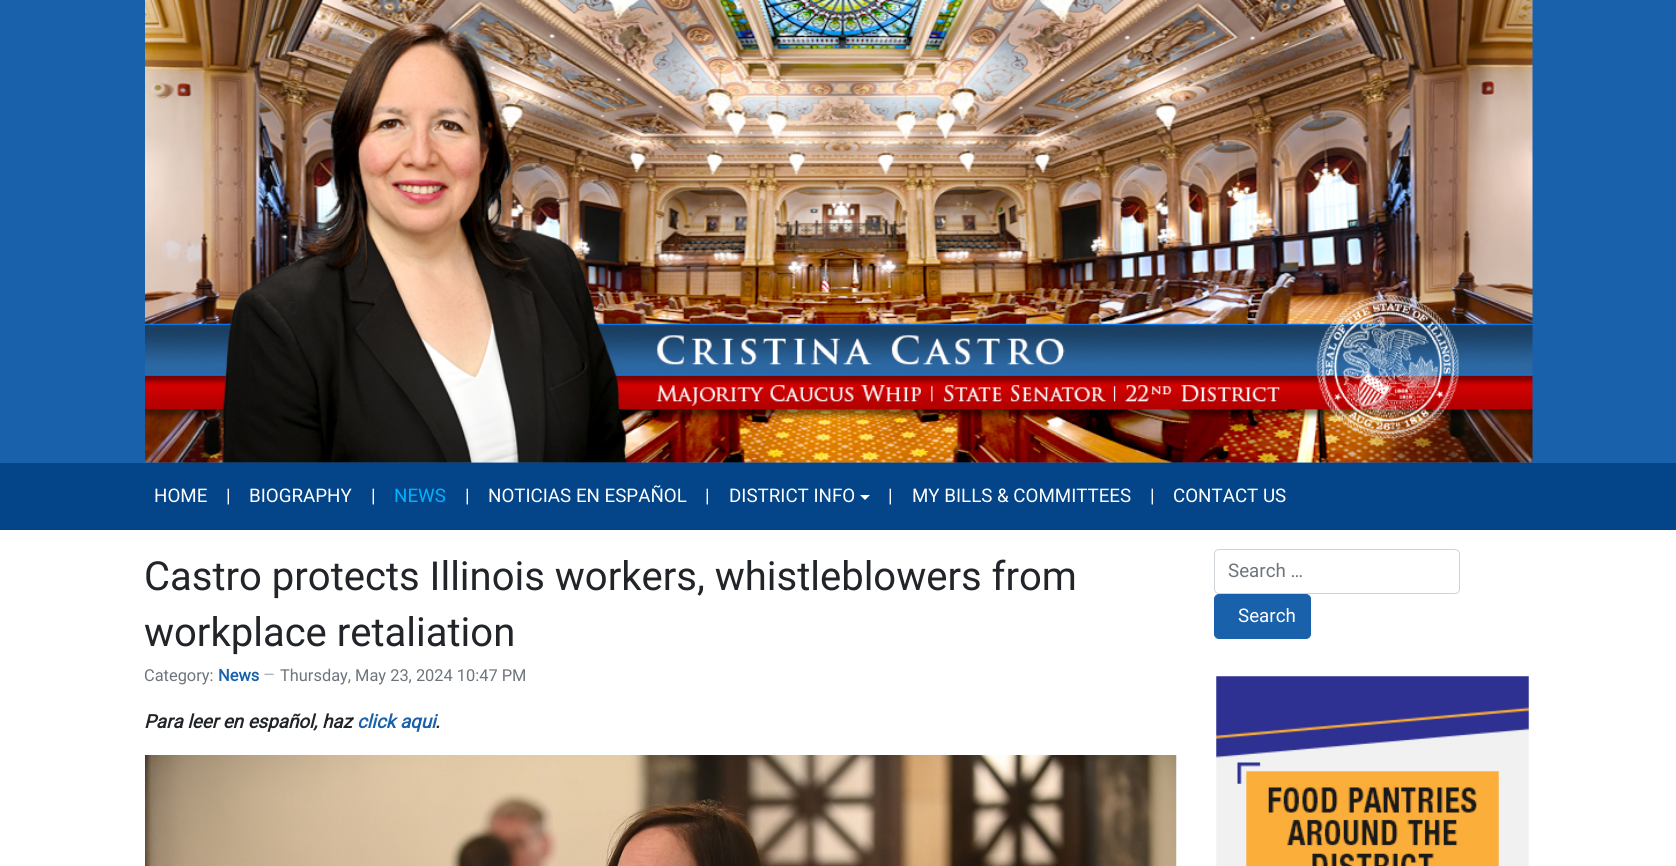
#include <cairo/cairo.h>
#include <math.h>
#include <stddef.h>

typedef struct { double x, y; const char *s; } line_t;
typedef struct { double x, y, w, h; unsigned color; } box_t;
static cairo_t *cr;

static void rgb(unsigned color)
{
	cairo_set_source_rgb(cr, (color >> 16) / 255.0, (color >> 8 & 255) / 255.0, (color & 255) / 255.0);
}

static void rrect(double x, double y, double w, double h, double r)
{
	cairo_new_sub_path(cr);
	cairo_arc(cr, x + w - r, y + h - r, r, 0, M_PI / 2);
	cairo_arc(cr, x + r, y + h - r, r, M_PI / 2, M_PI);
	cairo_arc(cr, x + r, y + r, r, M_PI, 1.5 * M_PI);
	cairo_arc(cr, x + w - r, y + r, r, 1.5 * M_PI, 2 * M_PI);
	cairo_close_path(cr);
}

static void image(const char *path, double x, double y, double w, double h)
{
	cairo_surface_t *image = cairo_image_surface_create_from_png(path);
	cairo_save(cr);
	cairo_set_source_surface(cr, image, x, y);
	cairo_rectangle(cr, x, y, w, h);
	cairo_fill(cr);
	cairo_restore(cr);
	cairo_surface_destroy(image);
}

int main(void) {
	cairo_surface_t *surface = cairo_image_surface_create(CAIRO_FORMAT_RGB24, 1676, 866);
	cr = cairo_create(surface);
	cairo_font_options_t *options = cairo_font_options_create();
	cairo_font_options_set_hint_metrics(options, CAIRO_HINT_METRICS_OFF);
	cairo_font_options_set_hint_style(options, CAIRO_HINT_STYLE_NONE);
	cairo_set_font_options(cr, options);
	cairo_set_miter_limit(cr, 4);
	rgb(0xffffff);
	cairo_paint(cr);
	rgb(0x1a61ab);
	cairo_rectangle(cr, 0, 0, 1676, 463);
	cairo_fill(cr);
	image("img/1.png", 145, 0, 1388, 463);
	{
		static const box_t items[] = {
			{0, 464, 1676, 65, 0x034588},
			{0, 463, 1676, 1, 0x09447f},
			{0, 529, 1676, 1, 0x09447f},
		};
		for (size_t i = 0; i < sizeof items / sizeof *items; i++) {
			rgb(items[i].color);
			cairo_rectangle(cr, items[i].x, items[i].y, items[i].w, items[i].h);
			cairo_fill(cr);
		}
	}
	rgb(0xffffff);
	cairo_new_path(cr);
	cairo_move_to(cr, 860, 495);
	cairo_line_to(cr, 870, 495);
	cairo_line_to(cr, 865, 500);
	cairo_close_path(cr);
	cairo_fill(cr);
	image("img/2.png", 145, 755, 1032, 111);
	rrect(1214.5, 549.5, 245, 44, 4.5);
	rgb(0xced4da);
	cairo_set_line_width(cr, 1);
	cairo_stroke(cr);
	rgb(0x1a61ab);
	rrect(1214.5, 594.5, 96, 44, 4.5);
	cairo_fill_preserve(cr);
	cairo_stroke(cr);
	image("img/3.png", 1216, 676, 313, 190);
	cairo_select_font_face(cr, "Roboto", CAIRO_FONT_SLANT_NORMAL, CAIRO_FONT_WEIGHT_NORMAL);
	cairo_set_font_size(cr, 18.75);
	rgb(0xffffff);
	{
		static const line_t items[] = {
			{154, 502, "HOME"},
			{226, 502, "|"},
			{249, 502, "BIOGRAPHY"},
			{371, 502, "|"},
		};
		for (size_t i = 0; i < sizeof items / sizeof *items; i++) {
			cairo_move_to(cr, items[i].x, items[i].y);
			cairo_show_text(cr, items[i].s);
		}
	}
	rgb(0x00b2ff);
	cairo_move_to(cr, 394, 502);
	cairo_show_text(cr, "NEWS");
	rgb(0xffffff);
	{
		static const line_t items[] = {
			{465, 502, "|"},
			{488, 502, "NOTICIAS EN ESPAÑOL"},
			{705, 502, "|"},
			{729, 502, "DISTRICT INFO"},
			{888, 502, "|"},
			{912, 502, "MY BILLS & COMMITTEES"},
			{1150, 502, "|"},
			{1173, 502, "CONTACT US"},
		};
		for (size_t i = 0; i < sizeof items / sizeof *items; i++) {
			cairo_move_to(cr, items[i].x, items[i].y);
			cairo_show_text(cr, items[i].s);
		}
	}
	cairo_set_font_size(cr, 40);
	rgb(0x212529);
	cairo_move_to(cr, 144, 590);
	cairo_show_text(cr, "Castro protects Illinois workers, whistleblowers from");
	cairo_move_to(cr, 144, 646);
	cairo_show_text(cr, "workplace retaliation");
	cairo_set_font_size(cr, 16.4);
	rgb(0x6c757d);
	cairo_move_to(cr, 144, 681);
	cairo_show_text(cr, "Category:");
	cairo_select_font_face(cr, "Roboto", CAIRO_FONT_SLANT_NORMAL, CAIRO_FONT_WEIGHT_BOLD);
	rgb(0x1a61ab);
	cairo_move_to(cr, 218, 681);
	cairo_show_text(cr, "News");
	cairo_select_font_face(cr, "Roboto", CAIRO_FONT_SLANT_NORMAL, CAIRO_FONT_WEIGHT_NORMAL);
	cairo_set_font_size(cr, 18.75);
	rgb(0xadb5bd);
	cairo_move_to(cr, 263, 681);
	cairo_show_text(cr, "–");
	cairo_set_font_size(cr, 16.4);
	rgb(0x6c757d);
	cairo_move_to(cr, 280, 681);
	cairo_show_text(cr, "Thursday, May 23, 2024 10:47 PM");
	cairo_select_font_face(cr, "Roboto", CAIRO_FONT_SLANT_ITALIC, CAIRO_FONT_WEIGHT_BOLD);
	cairo_set_font_size(cr, 18.75);
	rgb(0x212529);
	cairo_move_to(cr, 144, 728);
	cairo_show_text(cr, "Para leer en español, haz");
	rgb(0x1a61ab);
	cairo_move_to(cr, 357, 728);
	cairo_show_text(cr, "click aqui");
	rgb(0x212529);
	cairo_move_to(cr, 435, 728);
	cairo_show_text(cr, ".");
	cairo_select_font_face(cr, "Roboto", CAIRO_FONT_SLANT_NORMAL, CAIRO_FONT_WEIGHT_NORMAL);
	rgb(0x6c757d);
	cairo_move_to(cr, 1228, 577);
	cairo_show_text(cr, "Search …");
	rgb(0xffffff);
	cairo_move_to(cr, 1238, 622);
	cairo_show_text(cr, "Search");
	cairo_surface_write_to_png(surface, "page.png");
	cairo_font_options_destroy(options);
	cairo_destroy(cr);
	cairo_surface_destroy(surface);
	return 0;
}
